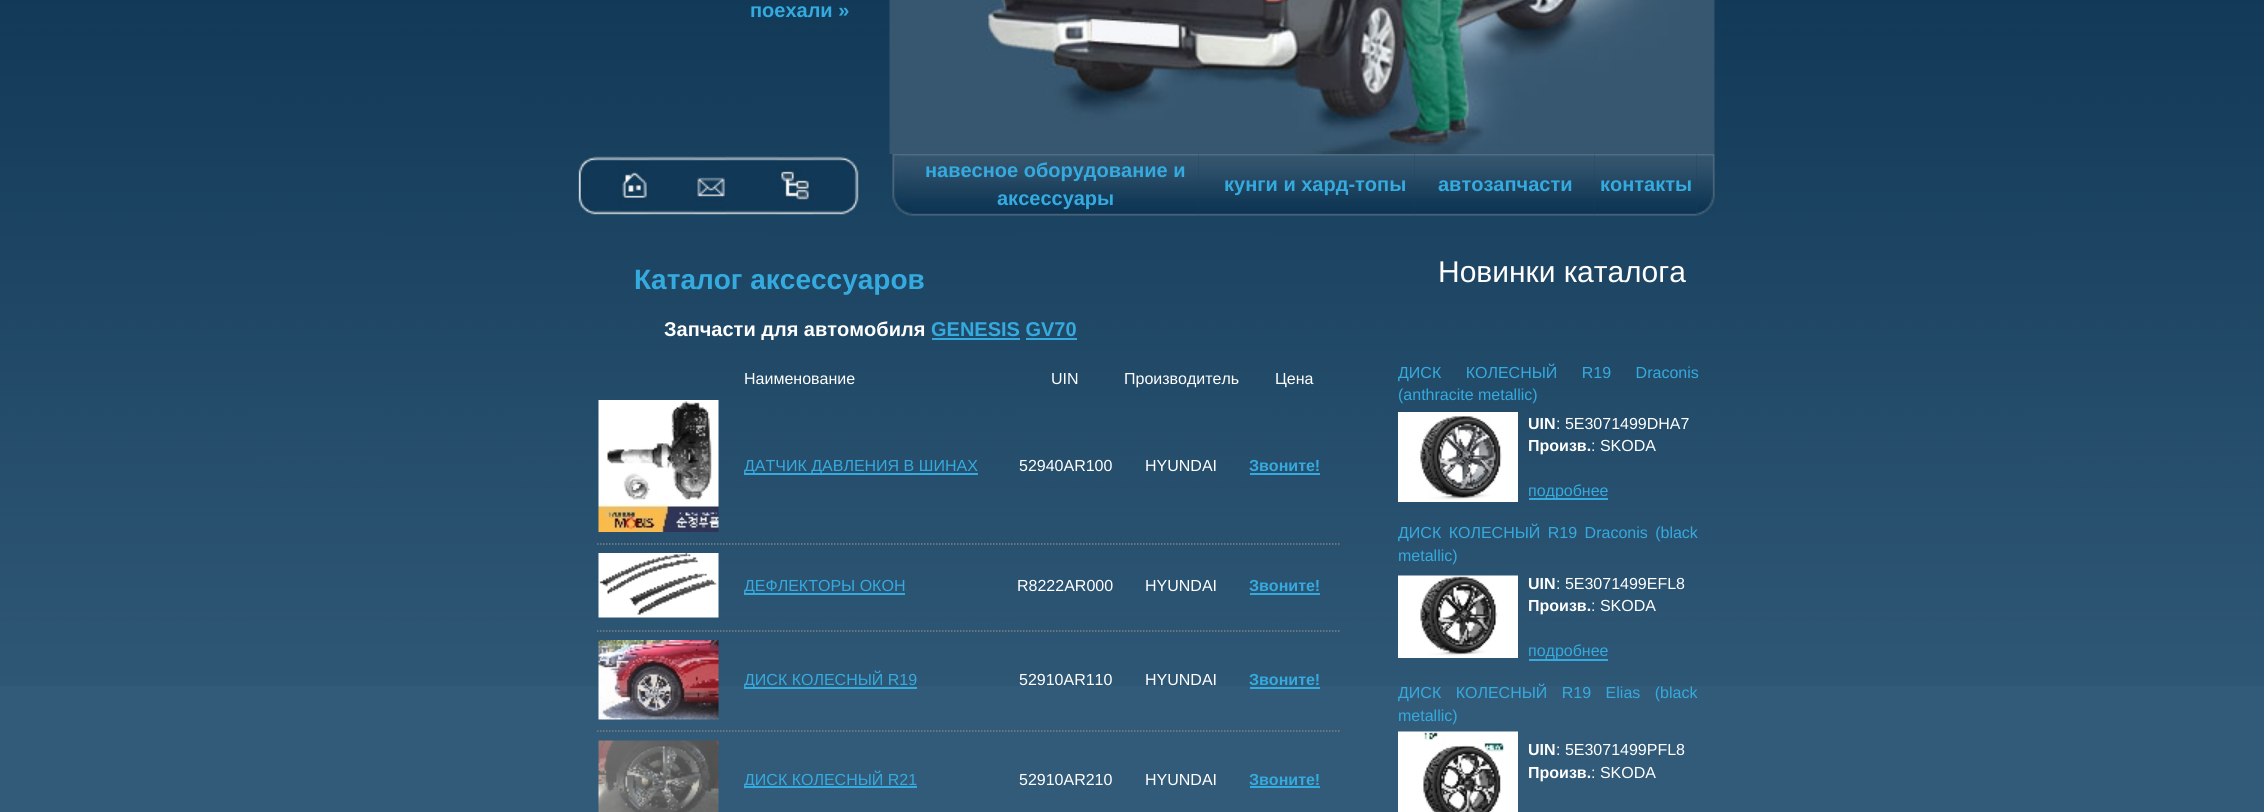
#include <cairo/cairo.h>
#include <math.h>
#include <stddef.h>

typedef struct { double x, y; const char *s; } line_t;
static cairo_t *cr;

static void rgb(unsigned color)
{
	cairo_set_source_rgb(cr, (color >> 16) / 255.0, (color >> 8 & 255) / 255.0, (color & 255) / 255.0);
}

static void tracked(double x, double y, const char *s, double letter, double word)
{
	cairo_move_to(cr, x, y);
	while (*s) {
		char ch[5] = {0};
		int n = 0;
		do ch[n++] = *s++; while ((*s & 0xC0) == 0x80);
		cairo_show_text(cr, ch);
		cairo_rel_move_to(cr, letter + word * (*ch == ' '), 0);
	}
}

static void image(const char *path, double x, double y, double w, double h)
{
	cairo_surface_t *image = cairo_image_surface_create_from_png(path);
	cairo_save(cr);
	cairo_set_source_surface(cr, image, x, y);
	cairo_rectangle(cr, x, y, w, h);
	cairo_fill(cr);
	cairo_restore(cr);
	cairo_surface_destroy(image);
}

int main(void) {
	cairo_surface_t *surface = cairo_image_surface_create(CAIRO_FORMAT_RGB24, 2264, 812);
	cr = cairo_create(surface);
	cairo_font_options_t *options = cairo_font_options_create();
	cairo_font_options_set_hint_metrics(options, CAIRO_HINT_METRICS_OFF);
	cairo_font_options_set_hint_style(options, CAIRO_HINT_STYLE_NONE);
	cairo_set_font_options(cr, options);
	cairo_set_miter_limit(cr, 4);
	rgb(0x325b79);
	cairo_paint(cr);
	image("img/1.png", 0, 0, 2264, 686);
	image("img/2.png", 889, 0, 826, 154);
	image("img/3.png", 577, 154, 20, 61);
	image("img/4.png", 597, 156, 75, 59);
	image("img/5.png", 619, 156, 30, 59);
	image("img/6.png", 672, 156, 78, 59);
	image("img/7.png", 694, 156, 32, 59);
	image("img/8.png", 750, 156, 90, 59);
	image("img/9.png", 777, 154, 36, 61);
	image("img/10.png", 840, 154, 20, 61);
	image("img/11.png", 892, 154, 20, 62);
	image("img/12.png", 912, 154, 287, 62);
	image("img/13.png", 1198, 154, 17, 62);
	image("img/14.png", 1215, 154, 200, 62);
	image("img/15.png", 1414, 154, 17, 62);
	image("img/16.png", 1431, 154, 147, 62);
	image("img/17.png", 1578, 154, 17, 62);
	image("img/18.png", 1594, 154, 103, 62);
	image("img/19.png", 1696, 154, 19, 62);
	rgb(0x35aadf);
	cairo_rectangle(cr, 932, 338, 88, 2);
	cairo_fill(cr);
	cairo_rectangle(cr, 1026, 338, 51, 2);
	cairo_fill(cr);
	image("img/20.png", 598, 400, 121, 132);
	cairo_rectangle(cr, 744, 473, 234, 2);
	cairo_fill(cr);
	cairo_rectangle(cr, 1250, 473, 70, 2);
	cairo_fill(cr);
	cairo_new_path(cr);
	cairo_move_to(cr, 597, 544);
	cairo_line_to(cr, 1341, 544);
	rgb(0x808080);
	cairo_set_line_width(cr, 1.5);
	cairo_set_dash(cr, (double[]){1.5, 1.5}, 2, 0);
	cairo_stroke(cr);
	image("img/21.png", 598, 553, 121, 65);
	rgb(0x35aadf);
	cairo_rectangle(cr, 744, 593, 161, 2);
	cairo_fill(cr);
	cairo_rectangle(cr, 1250, 593, 70, 2);
	cairo_fill(cr);
	cairo_new_path(cr);
	cairo_move_to(cr, 597, 631);
	cairo_line_to(cr, 1341, 631);
	rgb(0x808080);
	cairo_stroke(cr);
	image("img/22.png", 598, 640, 121, 80);
	rgb(0x35aadf);
	cairo_rectangle(cr, 744, 687, 173, 2);
	cairo_fill(cr);
	cairo_rectangle(cr, 1250, 687, 70, 2);
	cairo_fill(cr);
	cairo_new_path(cr);
	cairo_move_to(cr, 597, 731);
	cairo_line_to(cr, 1341, 731);
	rgb(0x808080);
	cairo_stroke(cr);
	image("img/23.png", 598, 740, 121, 72);
	rgb(0x35aadf);
	cairo_rectangle(cr, 744, 786, 173, 2);
	cairo_fill(cr);
	cairo_rectangle(cr, 1250, 786, 70, 2);
	cairo_fill(cr);
	image("img/24.png", 1398, 412, 120, 90);
	cairo_rectangle(cr, 1529, 498, 79, 2);
	cairo_fill(cr);
	image("img/25.png", 1398, 575, 120, 83);
	cairo_rectangle(cr, 1529, 659, 79, 2);
	cairo_fill(cr);
	image("img/26.png", 1398, 731, 120, 81);
	cairo_select_font_face(cr, "Liberation Sans", CAIRO_FONT_SLANT_NORMAL, CAIRO_FONT_WEIGHT_BOLD);
	cairo_set_font_size(cr, 20);
	{
		static const line_t items[] = {
			{750, 17, "поехали »"},
			{925, 177, "навесное оборудование и"},
			{997, 205, "аксессуары"},
			{1224, 191, "кунги и хард-топы"},
			{1438, 191, "автозапчасти"},
			{1600, 191, "контакты"},
		};
		for (size_t i = 0; i < sizeof items / sizeof *items; i++) {
			cairo_move_to(cr, items[i].x, items[i].y);
			cairo_show_text(cr, items[i].s);
		}
	}
	cairo_set_font_size(cr, 28);
	cairo_move_to(cr, 634, 289);
	cairo_show_text(cr, "Каталог аксессуаров");
	cairo_set_font_size(cr, 20);
	rgb(0xffffff);
	cairo_move_to(cr, 664, 336);
	cairo_show_text(cr, "Запчасти для автомобиля");
	rgb(0x35aadf);
	cairo_move_to(cr, 931, 336);
	cairo_show_text(cr, "GENESIS GV70");
	cairo_select_font_face(cr, "Liberation Sans", CAIRO_FONT_SLANT_NORMAL, CAIRO_FONT_WEIGHT_NORMAL);
	cairo_set_font_size(cr, 16);
	rgb(0xffffff);
	{
		static const line_t items[] = {
			{744, 384, "Наименование"},
			{1051, 384, "UIN"},
			{1124, 384, "Производитель"},
			{1275, 384, "Цена"},
		};
		for (size_t i = 0; i < sizeof items / sizeof *items; i++) {
			cairo_move_to(cr, items[i].x, items[i].y);
			cairo_show_text(cr, items[i].s);
		}
	}
	rgb(0x35aadf);
	cairo_move_to(cr, 744, 471);
	cairo_show_text(cr, "ДАТЧИК ДАВЛЕНИЯ В ШИНАХ");
	rgb(0xffffff);
	cairo_move_to(cr, 1019, 471);
	cairo_show_text(cr, "52940AR100");
	cairo_move_to(cr, 1145, 471);
	cairo_show_text(cr, "HYUNDAI");
	cairo_select_font_face(cr, "Liberation Sans", CAIRO_FONT_SLANT_NORMAL, CAIRO_FONT_WEIGHT_BOLD);
	rgb(0x35aadf);
	cairo_move_to(cr, 1249, 471);
	cairo_show_text(cr, "Звоните!");
	cairo_select_font_face(cr, "Liberation Sans", CAIRO_FONT_SLANT_NORMAL, CAIRO_FONT_WEIGHT_NORMAL);
	cairo_move_to(cr, 744, 591);
	cairo_show_text(cr, "ДЕФЛЕКТОРЫ ОКОН");
	rgb(0xffffff);
	cairo_move_to(cr, 1017, 591);
	cairo_show_text(cr, "R8222AR000");
	cairo_move_to(cr, 1145, 591);
	cairo_show_text(cr, "HYUNDAI");
	cairo_select_font_face(cr, "Liberation Sans", CAIRO_FONT_SLANT_NORMAL, CAIRO_FONT_WEIGHT_BOLD);
	rgb(0x35aadf);
	cairo_move_to(cr, 1249, 591);
	cairo_show_text(cr, "Звоните!");
	cairo_select_font_face(cr, "Liberation Sans", CAIRO_FONT_SLANT_NORMAL, CAIRO_FONT_WEIGHT_NORMAL);
	cairo_move_to(cr, 744, 685);
	cairo_show_text(cr, "ДИСК КОЛЕСНЫЙ R19");
	rgb(0xffffff);
	cairo_move_to(cr, 1019, 685);
	cairo_show_text(cr, "52910AR110");
	cairo_move_to(cr, 1145, 685);
	cairo_show_text(cr, "HYUNDAI");
	cairo_select_font_face(cr, "Liberation Sans", CAIRO_FONT_SLANT_NORMAL, CAIRO_FONT_WEIGHT_BOLD);
	rgb(0x35aadf);
	cairo_move_to(cr, 1249, 685);
	cairo_show_text(cr, "Звоните!");
	cairo_select_font_face(cr, "Liberation Sans", CAIRO_FONT_SLANT_NORMAL, CAIRO_FONT_WEIGHT_NORMAL);
	cairo_move_to(cr, 744, 785);
	cairo_show_text(cr, "ДИСК КОЛЕСНЫЙ R21");
	rgb(0xffffff);
	cairo_move_to(cr, 1019, 785);
	cairo_show_text(cr, "52910AR210");
	cairo_move_to(cr, 1145, 785);
	cairo_show_text(cr, "HYUNDAI");
	cairo_select_font_face(cr, "Liberation Sans", CAIRO_FONT_SLANT_NORMAL, CAIRO_FONT_WEIGHT_BOLD);
	rgb(0x35aadf);
	cairo_move_to(cr, 1249, 785);
	cairo_show_text(cr, "Звоните!");
	cairo_select_font_face(cr, "Liberation Sans", CAIRO_FONT_SLANT_NORMAL, CAIRO_FONT_WEIGHT_NORMAL);
	cairo_set_font_size(cr, 30);
	rgb(0xffffff);
	cairo_move_to(cr, 1438, 282);
	cairo_show_text(cr, "Новинки каталога");
	cairo_set_font_size(cr, 16);
	rgb(0x35aadf);
	tracked(1398, 378, "ДИСК КОЛЕСНЫЙ R19 Draconis", 0, 20);
	cairo_move_to(cr, 1398, 400);
	cairo_show_text(cr, "(anthracite metallic)");
	cairo_select_font_face(cr, "Liberation Sans", CAIRO_FONT_SLANT_NORMAL, CAIRO_FONT_WEIGHT_BOLD);
	rgb(0xffffff);
	cairo_move_to(cr, 1528, 429);
	cairo_show_text(cr, "UIN");
	cairo_select_font_face(cr, "Liberation Sans", CAIRO_FONT_SLANT_NORMAL, CAIRO_FONT_WEIGHT_NORMAL);
	cairo_move_to(cr, 1556, 429);
	cairo_show_text(cr, ": 5E3071499DHA7");
	cairo_select_font_face(cr, "Liberation Sans", CAIRO_FONT_SLANT_NORMAL, CAIRO_FONT_WEIGHT_BOLD);
	cairo_move_to(cr, 1528, 451);
	cairo_show_text(cr, "Произв.");
	cairo_select_font_face(cr, "Liberation Sans", CAIRO_FONT_SLANT_NORMAL, CAIRO_FONT_WEIGHT_NORMAL);
	cairo_move_to(cr, 1591, 451);
	cairo_show_text(cr, ": SKODA");
	rgb(0x35aadf);
	cairo_move_to(cr, 1528, 496);
	cairo_show_text(cr, "подробнее");
	tracked(1398, 538, "ДИСК КОЛЕСНЫЙ R19 Draconis (black", 0, 3);
	cairo_move_to(cr, 1398, 561);
	cairo_show_text(cr, "metallic)");
	cairo_select_font_face(cr, "Liberation Sans", CAIRO_FONT_SLANT_NORMAL, CAIRO_FONT_WEIGHT_BOLD);
	rgb(0xffffff);
	cairo_move_to(cr, 1528, 589);
	cairo_show_text(cr, "UIN");
	cairo_select_font_face(cr, "Liberation Sans", CAIRO_FONT_SLANT_NORMAL, CAIRO_FONT_WEIGHT_NORMAL);
	cairo_move_to(cr, 1556, 589);
	cairo_show_text(cr, ": 5E3071499EFL8");
	cairo_select_font_face(cr, "Liberation Sans", CAIRO_FONT_SLANT_NORMAL, CAIRO_FONT_WEIGHT_BOLD);
	cairo_move_to(cr, 1528, 611);
	cairo_show_text(cr, "Произв.");
	cairo_select_font_face(cr, "Liberation Sans", CAIRO_FONT_SLANT_NORMAL, CAIRO_FONT_WEIGHT_NORMAL);
	cairo_move_to(cr, 1591, 611);
	cairo_show_text(cr, ": SKODA");
	rgb(0x35aadf);
	cairo_move_to(cr, 1528, 656);
	cairo_show_text(cr, "подробнее");
	tracked(1398, 698, "ДИСК КОЛЕСНЫЙ R19 Elias (black", 0, 10);
	cairo_move_to(cr, 1398, 721);
	cairo_show_text(cr, "metallic)");
	cairo_select_font_face(cr, "Liberation Sans", CAIRO_FONT_SLANT_NORMAL, CAIRO_FONT_WEIGHT_BOLD);
	rgb(0xffffff);
	cairo_move_to(cr, 1528, 755);
	cairo_show_text(cr, "UIN");
	cairo_select_font_face(cr, "Liberation Sans", CAIRO_FONT_SLANT_NORMAL, CAIRO_FONT_WEIGHT_NORMAL);
	cairo_move_to(cr, 1556, 755);
	cairo_show_text(cr, ": 5E3071499PFL8");
	cairo_select_font_face(cr, "Liberation Sans", CAIRO_FONT_SLANT_NORMAL, CAIRO_FONT_WEIGHT_BOLD);
	cairo_move_to(cr, 1528, 778);
	cairo_show_text(cr, "Произв.");
	cairo_select_font_face(cr, "Liberation Sans", CAIRO_FONT_SLANT_NORMAL, CAIRO_FONT_WEIGHT_NORMAL);
	cairo_move_to(cr, 1591, 778);
	cairo_show_text(cr, ": SKODA");
	cairo_surface_write_to_png(surface, "page.png");
	cairo_font_options_destroy(options);
	cairo_destroy(cr);
	cairo_surface_destroy(surface);
	return 0;
}
